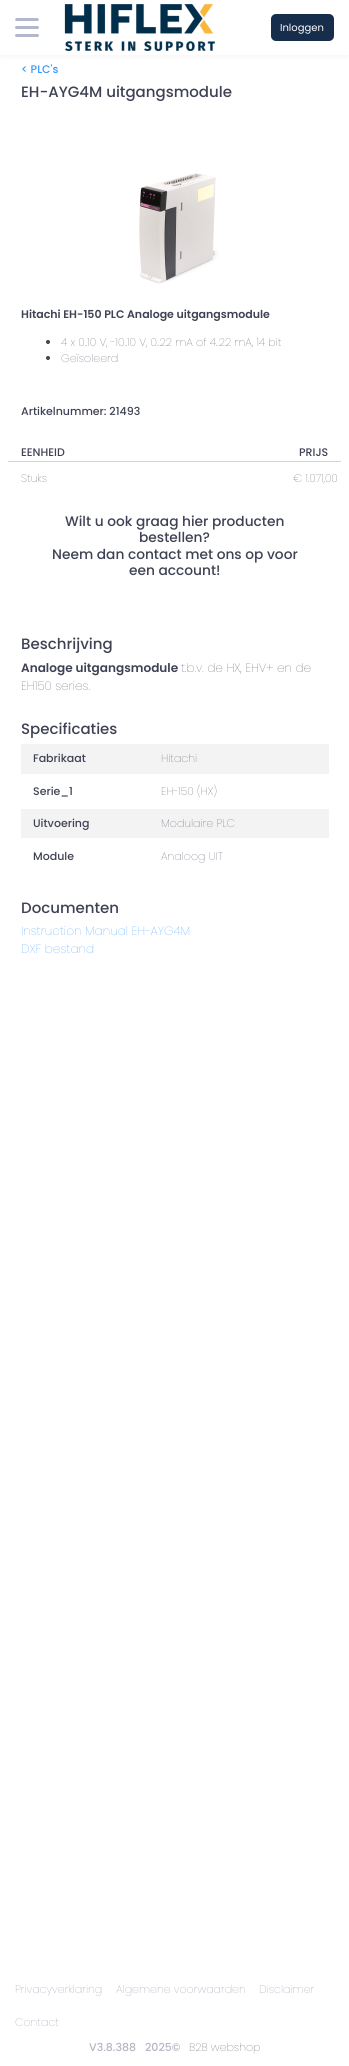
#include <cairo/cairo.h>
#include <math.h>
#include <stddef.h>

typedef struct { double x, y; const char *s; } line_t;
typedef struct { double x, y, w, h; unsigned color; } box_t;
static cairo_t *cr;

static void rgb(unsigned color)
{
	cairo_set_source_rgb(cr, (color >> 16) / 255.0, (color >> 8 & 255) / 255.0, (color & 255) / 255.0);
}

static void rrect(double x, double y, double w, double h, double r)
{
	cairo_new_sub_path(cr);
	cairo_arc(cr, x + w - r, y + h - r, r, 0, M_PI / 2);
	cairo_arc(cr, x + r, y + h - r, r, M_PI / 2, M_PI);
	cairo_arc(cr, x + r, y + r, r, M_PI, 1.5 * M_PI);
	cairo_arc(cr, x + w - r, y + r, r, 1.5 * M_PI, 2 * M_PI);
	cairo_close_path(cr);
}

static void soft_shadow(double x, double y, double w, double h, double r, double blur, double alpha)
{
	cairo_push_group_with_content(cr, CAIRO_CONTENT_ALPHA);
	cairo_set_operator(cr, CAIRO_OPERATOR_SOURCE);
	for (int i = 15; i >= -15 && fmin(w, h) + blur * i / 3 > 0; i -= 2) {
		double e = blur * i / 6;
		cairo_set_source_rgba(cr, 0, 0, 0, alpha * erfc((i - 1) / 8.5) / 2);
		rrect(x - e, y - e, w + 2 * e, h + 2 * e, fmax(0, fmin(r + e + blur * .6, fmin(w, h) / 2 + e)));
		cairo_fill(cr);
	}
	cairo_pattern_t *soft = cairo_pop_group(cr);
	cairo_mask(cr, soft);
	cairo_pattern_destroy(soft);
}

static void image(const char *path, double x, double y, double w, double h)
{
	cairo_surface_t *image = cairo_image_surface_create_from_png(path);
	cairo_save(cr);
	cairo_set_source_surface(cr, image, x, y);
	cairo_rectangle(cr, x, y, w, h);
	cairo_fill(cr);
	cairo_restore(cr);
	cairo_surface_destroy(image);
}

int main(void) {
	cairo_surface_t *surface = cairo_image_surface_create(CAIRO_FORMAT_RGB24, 349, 2066);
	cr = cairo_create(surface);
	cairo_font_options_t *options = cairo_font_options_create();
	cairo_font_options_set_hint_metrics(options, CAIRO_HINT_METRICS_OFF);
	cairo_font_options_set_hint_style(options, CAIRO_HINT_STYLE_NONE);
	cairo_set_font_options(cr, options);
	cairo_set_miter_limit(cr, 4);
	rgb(0xffffff);
	cairo_paint(cr);
	rgb(0x000000);
	soft_shadow(3, 4, 343, 49, 0, 4.5, 0.1);
	rgb(0xffffff);
	cairo_rectangle(cr, 0, 0, 349, 55);
	cairo_fill(cr);
	rgb(0xb4b8ce);
	rrect(15, 26, 24, 3, 1.5);
	cairo_fill(cr);
	cairo_save(cr);
	rrect(15, 16, 24, 24, 5);
	cairo_clip(cr);
	rrect(15, 18, 24, 3, 1.5);
	cairo_fill(cr);
	cairo_restore(cr);
	rrect(15, 34, 24, 3, 1.5);
	cairo_fill(cr);
	image("img/1.png", 64, 4, 151, 47);
	rgb(0x172d4c);
	rrect(271, 14, 63, 27, 5);
	cairo_fill(cr);
	image("img/2.png", 139, 173, 80, 111);
	rgb(0x3f4254);
	cairo_arc(cr, 48, 342, 2, 0, 2 * M_PI);
	cairo_fill(cr);
	cairo_arc(cr, 48, 358, 2, 0, 2 * M_PI);
	cairo_fill(cr);
	{
		static const box_t items[] = {
			{8, 461, 333, 1, 0xd1d3e0},
			{21, 744, 308, 30, 0xf3f3f3},
			{21, 809, 308, 29, 0xf3f3f3},
		};
		for (size_t i = 0; i < sizeof items / sizeof *items; i++) {
			rgb(items[i].color);
			cairo_rectangle(cr, items[i].x, items[i].y, items[i].w, items[i].h);
			cairo_fill(cr);
		}
	}
	cairo_select_font_face(cr, "Poppins", CAIRO_FONT_SLANT_NORMAL, CAIRO_FONT_WEIGHT_NORMAL);
	cairo_set_font_size(cr, 10);
	rgb(0xffffff);
	cairo_move_to(cr, 280, 31);
	cairo_show_text(cr, "Inloggen");
	cairo_select_font_face(cr, "Poppins Medium", CAIRO_FONT_SLANT_NORMAL, CAIRO_FONT_WEIGHT_NORMAL);
	cairo_set_font_size(cr, 11);
	rgb(0x3699ff);
	cairo_move_to(cr, 21, 73);
	cairo_show_text(cr, "< PLC's");
	cairo_set_font_size(cr, 15);
	rgb(0x3f4254);
	cairo_move_to(cr, 21, 97);
	cairo_show_text(cr, "EH-AYG4M uitgangsmodule");
	cairo_select_font_face(cr, "Poppins SemiBold", CAIRO_FONT_SLANT_NORMAL, CAIRO_FONT_WEIGHT_NORMAL);
	cairo_set_font_size(cr, 11);
	cairo_move_to(cr, 21, 318);
	cairo_show_text(cr, "Hitachi EH-150 PLC Analoge uitgangsmodule");
	cairo_select_font_face(cr, "Poppins ExtraLight", CAIRO_FONT_SLANT_NORMAL, CAIRO_FONT_WEIGHT_NORMAL);
	cairo_move_to(cr, 61, 346);
	cairo_show_text(cr, "4 x 0..10 V, -10..10 V, 0..22 mA of 4..22 mA, 14 bit");
	cairo_move_to(cr, 61, 362);
	cairo_show_text(cr, "Geïsoleerd");
	cairo_select_font_face(cr, "Poppins Medium", CAIRO_FONT_SLANT_NORMAL, CAIRO_FONT_WEIGHT_NORMAL);
	{
		static const line_t items[] = {
			{21, 415, "Artikelnummer: 21493"},
			{21, 456, "EENHEID"},
			{299, 456, "PRIJS"},
		};
		for (size_t i = 0; i < sizeof items / sizeof *items; i++) {
			cairo_move_to(cr, items[i].x, items[i].y);
			cairo_show_text(cr, items[i].s);
		}
	}
	cairo_select_font_face(cr, "Poppins ExtraLight", CAIRO_FONT_SLANT_NORMAL, CAIRO_FONT_WEIGHT_NORMAL);
	cairo_move_to(cr, 21, 482);
	cairo_show_text(cr, "Stuks");
	cairo_move_to(cr, 293, 482);
	cairo_show_text(cr, "€ 1.071,00");
	cairo_select_font_face(cr, "Poppins Medium", CAIRO_FONT_SLANT_NORMAL, CAIRO_FONT_WEIGHT_NORMAL);
	cairo_set_font_size(cr, 13.75);
	{
		static const line_t items[] = {
			{65, 526, "Wilt u ook graag hier producten"},
			{139, 542, "bestellen?"},
			{52, 559, "Neem dan contact met ons op voor"},
			{129, 575, "een account!"},
		};
		for (size_t i = 0; i < sizeof items / sizeof *items; i++) {
			cairo_move_to(cr, items[i].x, items[i].y);
			cairo_show_text(cr, items[i].s);
		}
	}
	cairo_set_font_size(cr, 15);
	cairo_move_to(cr, 21, 649);
	cairo_show_text(cr, "Beschrijving");
	cairo_select_font_face(cr, "Poppins SemiBold", CAIRO_FONT_SLANT_NORMAL, CAIRO_FONT_WEIGHT_NORMAL);
	cairo_set_font_size(cr, 12.1);
	cairo_move_to(cr, 21, 672);
	cairo_show_text(cr, "Analoge uitgangsmodule");
	cairo_select_font_face(cr, "Poppins ExtraLight", CAIRO_FONT_SLANT_NORMAL, CAIRO_FONT_WEIGHT_NORMAL);
	cairo_move_to(cr, 181, 672);
	cairo_show_text(cr, "t.b.v. de HX, EHV+ en de");
	cairo_move_to(cr, 21, 690);
	cairo_show_text(cr, "EH150 series.");
	cairo_select_font_face(cr, "Poppins Medium", CAIRO_FONT_SLANT_NORMAL, CAIRO_FONT_WEIGHT_NORMAL);
	cairo_set_font_size(cr, 15);
	cairo_move_to(cr, 21, 734);
	cairo_show_text(cr, "Specificaties");
	cairo_set_font_size(cr, 11);
	cairo_move_to(cr, 33, 762);
	cairo_show_text(cr, "Fabrikaat");
	cairo_select_font_face(cr, "Poppins ExtraLight", CAIRO_FONT_SLANT_NORMAL, CAIRO_FONT_WEIGHT_NORMAL);
	cairo_move_to(cr, 161, 762);
	cairo_show_text(cr, "Hitachi");
	cairo_select_font_face(cr, "Poppins Medium", CAIRO_FONT_SLANT_NORMAL, CAIRO_FONT_WEIGHT_NORMAL);
	cairo_move_to(cr, 33, 795);
	cairo_show_text(cr, "Serie_1");
	cairo_select_font_face(cr, "Poppins ExtraLight", CAIRO_FONT_SLANT_NORMAL, CAIRO_FONT_WEIGHT_NORMAL);
	cairo_move_to(cr, 161, 795);
	cairo_show_text(cr, "EH-150 (HX)");
	cairo_select_font_face(cr, "Poppins Medium", CAIRO_FONT_SLANT_NORMAL, CAIRO_FONT_WEIGHT_NORMAL);
	cairo_move_to(cr, 33, 827);
	cairo_show_text(cr, "Uitvoering");
	cairo_select_font_face(cr, "Poppins ExtraLight", CAIRO_FONT_SLANT_NORMAL, CAIRO_FONT_WEIGHT_NORMAL);
	cairo_move_to(cr, 161, 827);
	cairo_show_text(cr, "Modulaire PLC");
	cairo_select_font_face(cr, "Poppins Medium", CAIRO_FONT_SLANT_NORMAL, CAIRO_FONT_WEIGHT_NORMAL);
	cairo_move_to(cr, 33, 860);
	cairo_show_text(cr, "Module");
	cairo_select_font_face(cr, "Poppins ExtraLight", CAIRO_FONT_SLANT_NORMAL, CAIRO_FONT_WEIGHT_NORMAL);
	cairo_move_to(cr, 161, 860);
	cairo_show_text(cr, "Analoog UIT");
	cairo_select_font_face(cr, "Poppins Medium", CAIRO_FONT_SLANT_NORMAL, CAIRO_FONT_WEIGHT_NORMAL);
	cairo_set_font_size(cr, 15);
	cairo_move_to(cr, 21, 913);
	cairo_show_text(cr, "Documenten");
	cairo_select_font_face(cr, "Poppins ExtraLight", CAIRO_FONT_SLANT_NORMAL, CAIRO_FONT_WEIGHT_NORMAL);
	cairo_set_font_size(cr, 12.1);
	rgb(0x3699ff);
	cairo_move_to(cr, 21, 935);
	cairo_show_text(cr, "Instruction Manual EH-AYG4M");
	cairo_move_to(cr, 21, 953);
	cairo_show_text(cr, "DXF bestand");
	cairo_set_font_size(cr, 11);
	rgb(0x7e8299);
	{
		static const line_t items[] = {
			{15, 1993, "Privacyverklaring"},
			{116, 1993, "Algemene voorwaarden"},
			{259, 1993, "Disclaimer"},
			{15, 2026, "Contact"},
		};
		for (size_t i = 0; i < sizeof items / sizeof *items; i++) {
			cairo_move_to(cr, items[i].x, items[i].y);
			cairo_show_text(cr, items[i].s);
		}
	}
	cairo_select_font_face(cr, "Poppins Medium", CAIRO_FONT_SLANT_NORMAL, CAIRO_FONT_WEIGHT_NORMAL);
	rgb(0xb5b5c3);
	cairo_move_to(cr, 89, 2051);
	cairo_show_text(cr, "V3.8.388");
	cairo_move_to(cr, 145, 2051);
	cairo_show_text(cr, "2025©");
	cairo_select_font_face(cr, "Poppins ExtraLight", CAIRO_FONT_SLANT_NORMAL, CAIRO_FONT_WEIGHT_NORMAL);
	rgb(0x3f4254);
	cairo_move_to(cr, 189, 2051);
	cairo_show_text(cr, "B2B webshop");
	cairo_surface_write_to_png(surface, "page.png");
	cairo_font_options_destroy(options);
	cairo_destroy(cr);
	cairo_surface_destroy(surface);
	return 0;
}
